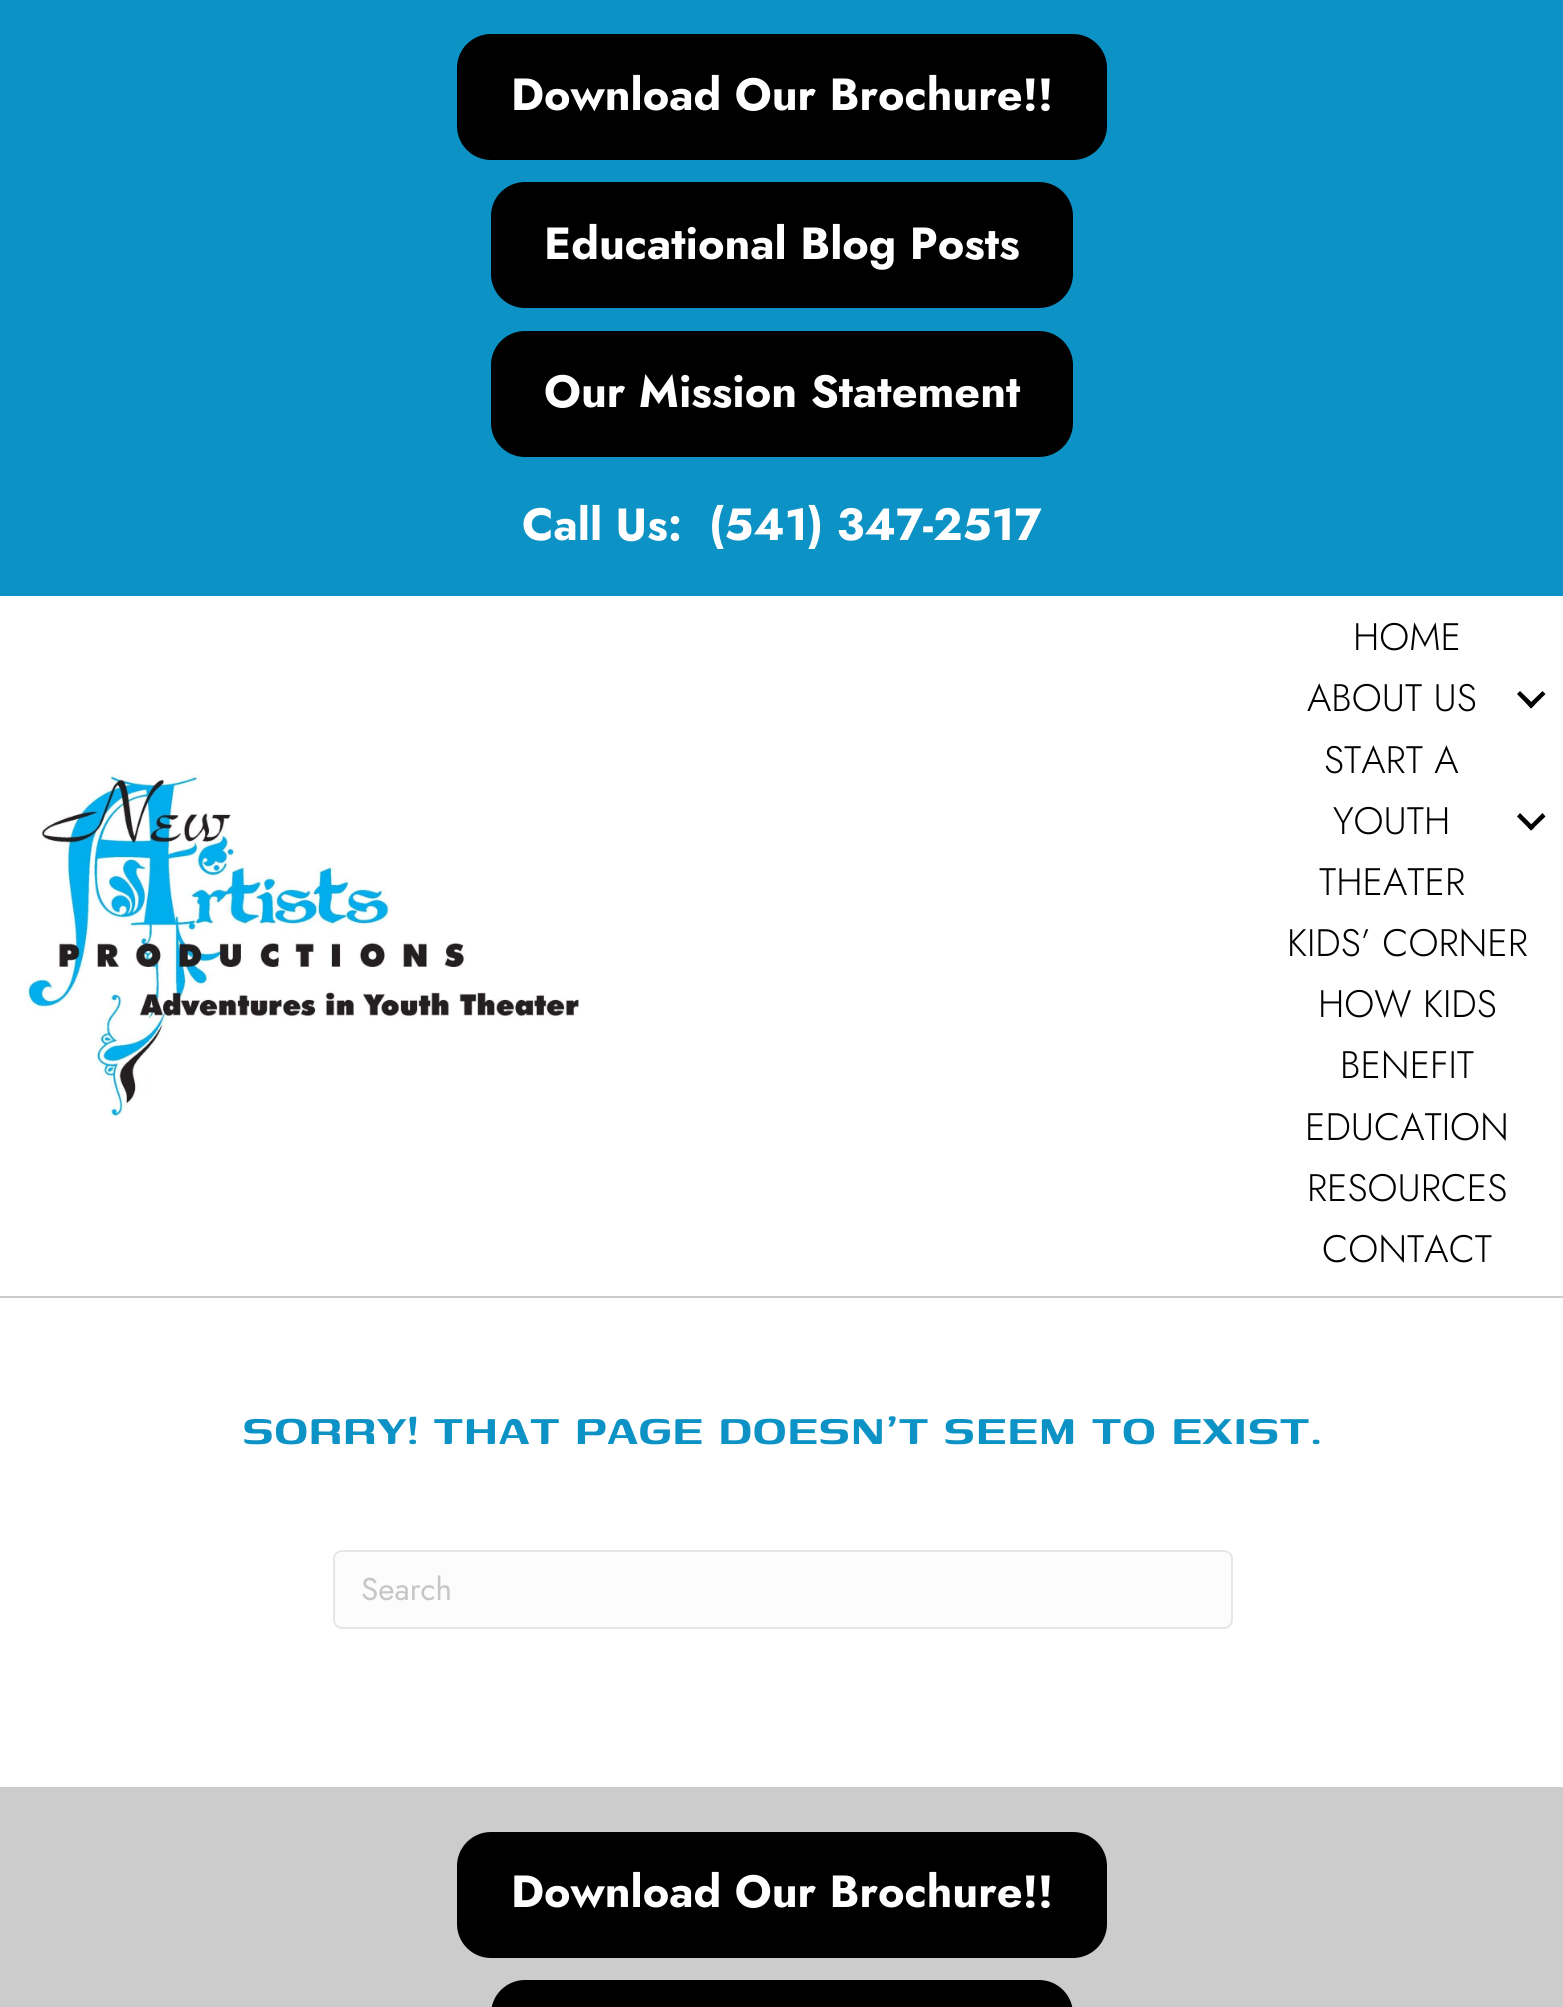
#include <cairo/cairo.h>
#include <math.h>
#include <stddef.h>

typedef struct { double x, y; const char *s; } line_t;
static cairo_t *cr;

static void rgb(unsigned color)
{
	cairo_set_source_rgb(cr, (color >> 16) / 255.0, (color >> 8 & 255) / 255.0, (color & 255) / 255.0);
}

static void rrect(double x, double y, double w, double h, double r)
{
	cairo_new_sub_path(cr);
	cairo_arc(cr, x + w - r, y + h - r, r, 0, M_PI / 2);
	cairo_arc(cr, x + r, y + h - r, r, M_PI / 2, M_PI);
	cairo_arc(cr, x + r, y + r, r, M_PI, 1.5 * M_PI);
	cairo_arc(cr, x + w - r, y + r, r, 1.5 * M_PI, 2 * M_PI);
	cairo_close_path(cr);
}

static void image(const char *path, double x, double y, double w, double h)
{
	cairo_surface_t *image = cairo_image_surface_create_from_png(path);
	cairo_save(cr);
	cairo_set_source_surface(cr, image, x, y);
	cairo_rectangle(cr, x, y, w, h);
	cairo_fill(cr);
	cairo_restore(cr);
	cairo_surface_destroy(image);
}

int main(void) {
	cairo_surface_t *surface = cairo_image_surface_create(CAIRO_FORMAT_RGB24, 1563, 2007);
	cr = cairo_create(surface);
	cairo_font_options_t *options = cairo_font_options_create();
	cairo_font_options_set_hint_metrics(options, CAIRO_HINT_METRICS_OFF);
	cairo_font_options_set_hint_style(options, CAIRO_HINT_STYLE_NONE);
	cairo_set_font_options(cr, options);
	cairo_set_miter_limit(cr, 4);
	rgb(0xffffff);
	cairo_paint(cr);
	rgb(0x0c92c4);
	cairo_rectangle(cr, 0, 0, 1563, 596);
	cairo_fill(cr);
	rgb(0x000000);
	rrect(457, 34, 650, 126, 34);
	cairo_fill(cr);
	rrect(491, 182, 582, 126, 34);
	cairo_fill(cr);
	rrect(491, 331, 582, 126, 34);
	cairo_fill(cr);
	rgb(0xcccccc);
	cairo_rectangle(cr, 0, 1296, 1563, 2);
	cairo_fill(cr);
	image("img/1.png", 26, 774, 553, 347);
	rgb(0x000000);
	cairo_new_path(cr);
	cairo_move_to(cr, 1542.5, 691);
	cairo_line_to(cr, 1545.5, 694);
	cairo_line_to(cr, 1531, 708.5);
	cairo_line_to(cr, 1528, 705);
	cairo_close_path(cr);
	cairo_fill(cr);
	cairo_new_path(cr);
	cairo_move_to(cr, 1520, 691);
	cairo_line_to(cr, 1534.5, 705);
	cairo_line_to(cr, 1531, 708.5);
	cairo_line_to(cr, 1517, 694);
	cairo_close_path(cr);
	cairo_fill(cr);
	cairo_new_path(cr);
	cairo_move_to(cr, 1542.5, 813);
	cairo_line_to(cr, 1545.5, 816.5);
	cairo_line_to(cr, 1531, 830.5);
	cairo_line_to(cr, 1528, 827.5);
	cairo_close_path(cr);
	cairo_fill(cr);
	cairo_new_path(cr);
	cairo_move_to(cr, 1520, 813);
	cairo_line_to(cr, 1534.5, 827.5);
	cairo_line_to(cr, 1531, 830.5);
	cairo_line_to(cr, 1517, 816.5);
	cairo_close_path(cr);
	cairo_fill(cr);
	rgb(0xfcfcfc);
	rrect(335, 1553, 896, 74, 7);
	cairo_fill(cr);
	rrect(334, 1551, 898, 77, 8);
	rgb(0xe6e6e6);
	cairo_stroke(cr);
	rgb(0xcccccc);
	cairo_rectangle(cr, 0, 1787, 1563, 220);
	cairo_fill(cr);
	rgb(0x000000);
	rrect(457, 1832, 650, 126, 34);
	cairo_fill(cr);
	rrect(491, 1980, 582, 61, 34);
	cairo_fill(cr);
	cairo_select_font_face(cr, "Jost", CAIRO_FONT_SLANT_NORMAL, CAIRO_FONT_WEIGHT_BOLD);
	cairo_set_font_size(cr, 45);
	rgb(0xffffff);
	{
		static const line_t items[] = {
			{511, 110, "Download Our Brochure!!"},
			{544, 259, "Educational Blog Posts"},
			{544, 407, "Our Mission Statement"},
			{522, 540, "Call Us:"},
			{709, 540, "(541) 347-2517"},
		};
		for (size_t i = 0; i < sizeof items / sizeof *items; i++) {
			cairo_move_to(cr, items[i].x, items[i].y);
			cairo_show_text(cr, items[i].s);
		}
	}
	cairo_select_font_face(cr, "Jost Light", CAIRO_FONT_SLANT_NORMAL, CAIRO_FONT_WEIGHT_NORMAL);
	cairo_set_font_size(cr, 38.25);
	rgb(0x000000);
	{
		static const line_t items[] = {
			{1353, 650, "HOME"},
			{1307, 711, "ABOUT US"},
			{1324, 773, "START A"},
			{1333, 834, "YOUTH"},
			{1319, 895, "THEATER"},
			{1287, 956, "KIDS’ CORNER"},
			{1318, 1017, "HOW KIDS"},
			{1340, 1078, "BENEFIT"},
			{1305, 1140, "EDUCATION"},
			{1307, 1201, "RESOURCES"},
			{1322, 1262, "CONTACT"},
		};
		for (size_t i = 0; i < sizeof items / sizeof *items; i++) {
			cairo_move_to(cr, items[i].x, items[i].y);
			cairo_show_text(cr, items[i].s);
		}
	}
	cairo_select_font_face(cr, "Genos Thin", CAIRO_FONT_SLANT_NORMAL, CAIRO_FONT_WEIGHT_NORMAL);
	cairo_set_font_size(cr, 54);
	rgb(0x0c92c4);
	cairo_move_to(cr, 242, 1444);
	cairo_show_text(cr, "SORRY! THAT PAGE DOESN'T SEEM TO EXIST.");
	cairo_select_font_face(cr, "Jost", CAIRO_FONT_SLANT_NORMAL, CAIRO_FONT_WEIGHT_NORMAL);
	cairo_set_font_size(cr, 31.5);
	rgb(0xc6c6c6);
	cairo_move_to(cr, 361, 1600);
	cairo_show_text(cr, "Search");
	cairo_select_font_face(cr, "Jost", CAIRO_FONT_SLANT_NORMAL, CAIRO_FONT_WEIGHT_BOLD);
	cairo_set_font_size(cr, 45);
	rgb(0xffffff);
	cairo_move_to(cr, 511, 1907);
	cairo_show_text(cr, "Download Our Brochure!!");
	cairo_surface_write_to_png(surface, "page.png");
	cairo_font_options_destroy(options);
	cairo_destroy(cr);
	cairo_surface_destroy(surface);
	return 0;
}
